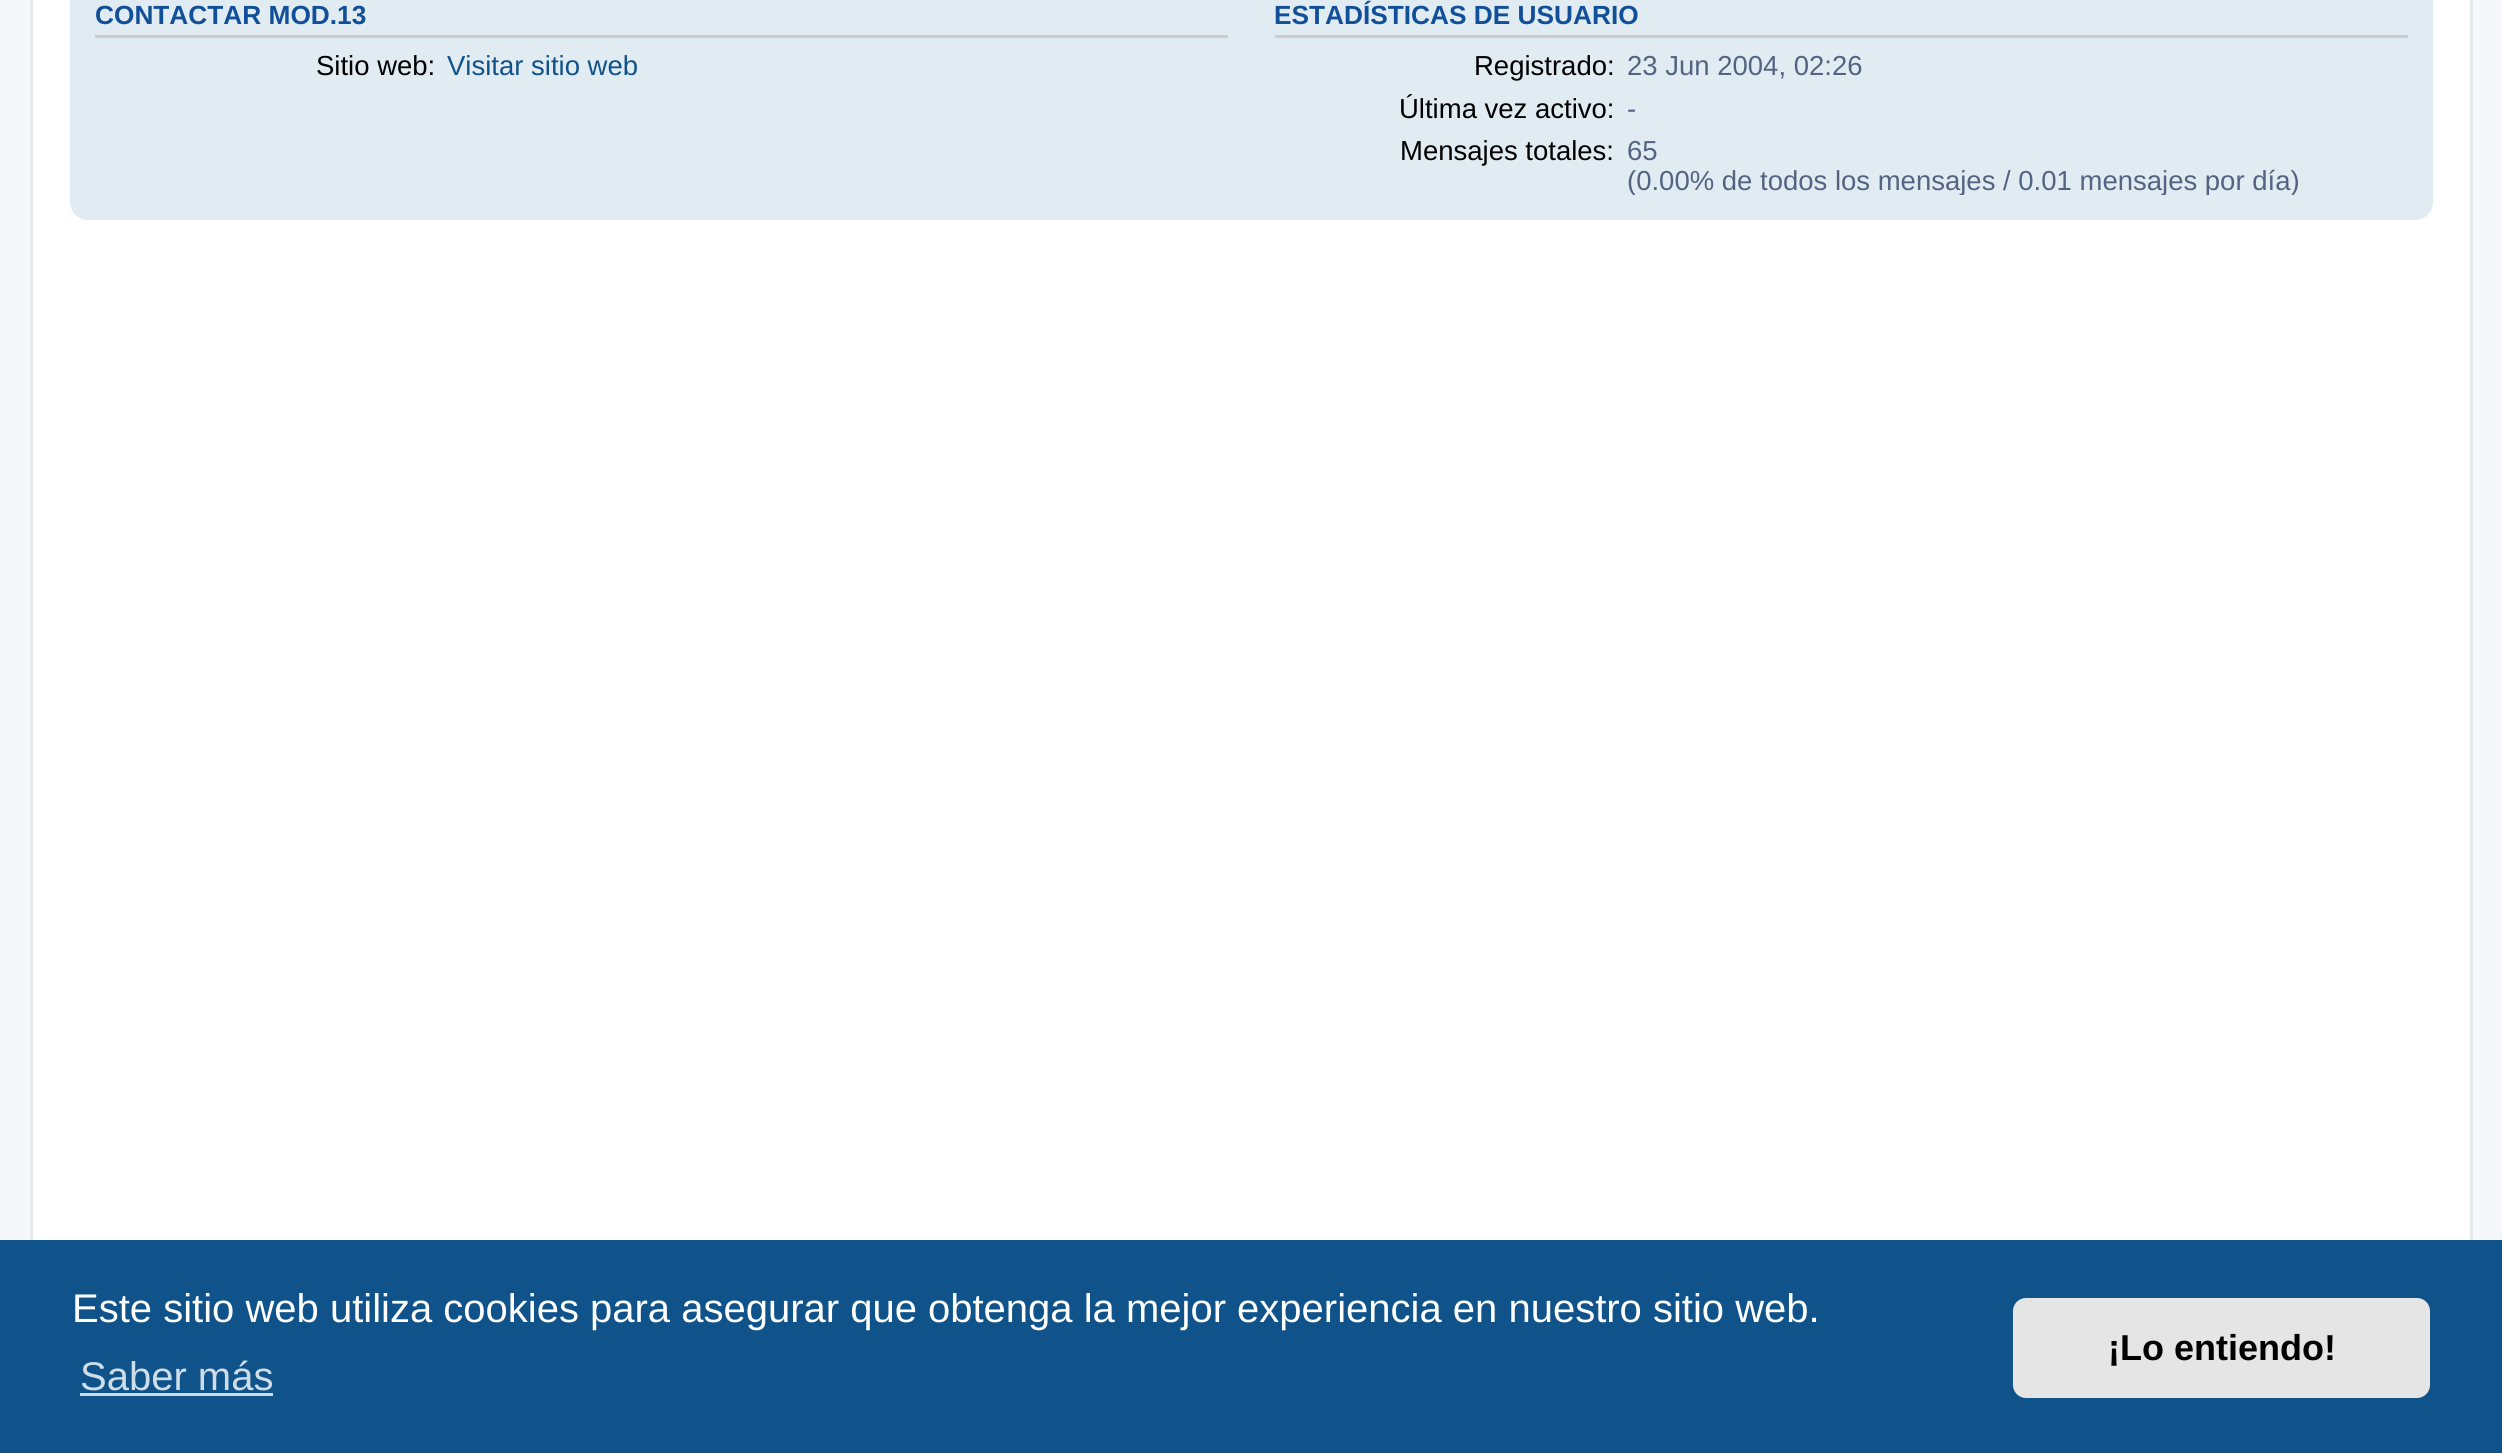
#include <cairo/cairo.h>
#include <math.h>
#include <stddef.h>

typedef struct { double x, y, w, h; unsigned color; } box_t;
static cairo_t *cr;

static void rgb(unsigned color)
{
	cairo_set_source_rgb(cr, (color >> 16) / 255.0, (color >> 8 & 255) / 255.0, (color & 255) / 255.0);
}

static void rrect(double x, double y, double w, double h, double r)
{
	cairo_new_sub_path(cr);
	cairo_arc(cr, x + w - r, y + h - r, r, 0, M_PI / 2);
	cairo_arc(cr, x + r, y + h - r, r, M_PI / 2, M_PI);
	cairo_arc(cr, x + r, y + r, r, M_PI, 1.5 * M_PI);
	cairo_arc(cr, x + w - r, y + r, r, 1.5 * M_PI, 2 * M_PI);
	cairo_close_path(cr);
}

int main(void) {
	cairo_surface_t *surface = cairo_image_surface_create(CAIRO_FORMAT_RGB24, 2502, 1453);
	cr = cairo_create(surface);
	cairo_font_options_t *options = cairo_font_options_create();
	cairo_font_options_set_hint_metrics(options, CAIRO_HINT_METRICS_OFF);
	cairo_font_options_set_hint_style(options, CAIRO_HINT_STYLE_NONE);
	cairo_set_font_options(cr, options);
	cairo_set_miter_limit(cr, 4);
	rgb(0xf5f7fa);
	cairo_paint(cr);
	rgb(0xffffff);
	cairo_rectangle(cr, 33, 0, 2437, 1240);
	cairo_fill(cr);
	cairo_rectangle(cr, 31.5, -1.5, 2440, 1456);
	rgb(0xe6e9ed);
	cairo_set_line_width(cr, 3);
	cairo_stroke(cr);
	rgb(0xe1ebf2);
	rrect(70, -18, 2363, 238, 18);
	cairo_fill(cr);
	{
		static const box_t items[] = {
			{95, 35, 1133, 3, 0xcccccc},
			{1275, 35, 1133, 3, 0xcccccc},
			{0, 1240, 2502, 213, 0x0f538a},
			{80, 1393, 193, 3, 0xcfdde8},
		};
		for (size_t i = 0; i < sizeof items / sizeof *items; i++) {
			rgb(items[i].color);
			cairo_rectangle(cr, items[i].x, items[i].y, items[i].w, items[i].h);
			cairo_fill(cr);
		}
	}
	rgb(0xe5e5e5);
	rrect(2013, 1298, 417, 100, 13);
	cairo_fill(cr);
	cairo_select_font_face(cr, "Liberation Sans", CAIRO_FONT_SLANT_NORMAL, CAIRO_FONT_WEIGHT_BOLD);
	cairo_set_font_size(cr, 26.25);
	rgb(0x115098);
	cairo_move_to(cr, 95, 24);
	cairo_show_text(cr, "CONTACTAR MOD.13");
	cairo_select_font_face(cr, "Liberation Sans", CAIRO_FONT_SLANT_NORMAL, CAIRO_FONT_WEIGHT_NORMAL);
	cairo_set_font_size(cr, 27.5);
	rgb(0x000000);
	cairo_move_to(cr, 316, 75);
	cairo_show_text(cr, "Sitio web:");
	rgb(0x105289);
	cairo_move_to(cr, 447, 75);
	cairo_show_text(cr, "Visitar sitio web");
	cairo_select_font_face(cr, "Liberation Sans", CAIRO_FONT_SLANT_NORMAL, CAIRO_FONT_WEIGHT_BOLD);
	cairo_set_font_size(cr, 26.25);
	rgb(0x115098);
	cairo_move_to(cr, 1274, 24);
	cairo_show_text(cr, "ESTADÍSTICAS DE USUARIO");
	cairo_select_font_face(cr, "Liberation Sans", CAIRO_FONT_SLANT_NORMAL, CAIRO_FONT_WEIGHT_NORMAL);
	cairo_set_font_size(cr, 27.5);
	rgb(0x000000);
	cairo_move_to(cr, 1474, 75);
	cairo_show_text(cr, "Registrado:");
	rgb(0x536482);
	cairo_move_to(cr, 1627, 75);
	cairo_show_text(cr, "23 Jun 2004, 02:26");
	rgb(0x000000);
	cairo_move_to(cr, 1399, 118);
	cairo_show_text(cr, "Última vez activo:");
	rgb(0x536482);
	cairo_move_to(cr, 1627, 118);
	cairo_show_text(cr, "-");
	rgb(0x000000);
	cairo_move_to(cr, 1400, 160);
	cairo_show_text(cr, "Mensajes totales:");
	rgb(0x536482);
	cairo_move_to(cr, 1627, 160);
	cairo_show_text(cr, "65");
	cairo_save(cr);
	cairo_rectangle(cr, 1615, 135, 748, 60);
	cairo_clip(cr);
	cairo_move_to(cr, 1627, 190);
	cairo_show_text(cr, "(0.00% de todos los mensajes / 0.01 mensajes por día)");
	cairo_restore(cr);
	cairo_set_font_size(cr, 40);
	rgb(0xffffff);
	cairo_move_to(cr, 72, 1322);
	cairo_show_text(cr, "Este sitio web utiliza cookies para asegurar que obtenga la mejor experiencia en nuestro sitio web.");
	rgb(0xcfdde8);
	cairo_move_to(cr, 80, 1390);
	cairo_show_text(cr, "Saber más");
	cairo_select_font_face(cr, "Liberation Sans", CAIRO_FONT_SLANT_NORMAL, CAIRO_FONT_WEIGHT_BOLD);
	cairo_set_font_size(cr, 36);
	rgb(0x000000);
	cairo_move_to(cr, 2108, 1360);
	cairo_show_text(cr, "¡Lo entiendo!");
	cairo_surface_write_to_png(surface, "page.png");
	cairo_font_options_destroy(options);
	cairo_destroy(cr);
	cairo_surface_destroy(surface);
	return 0;
}
